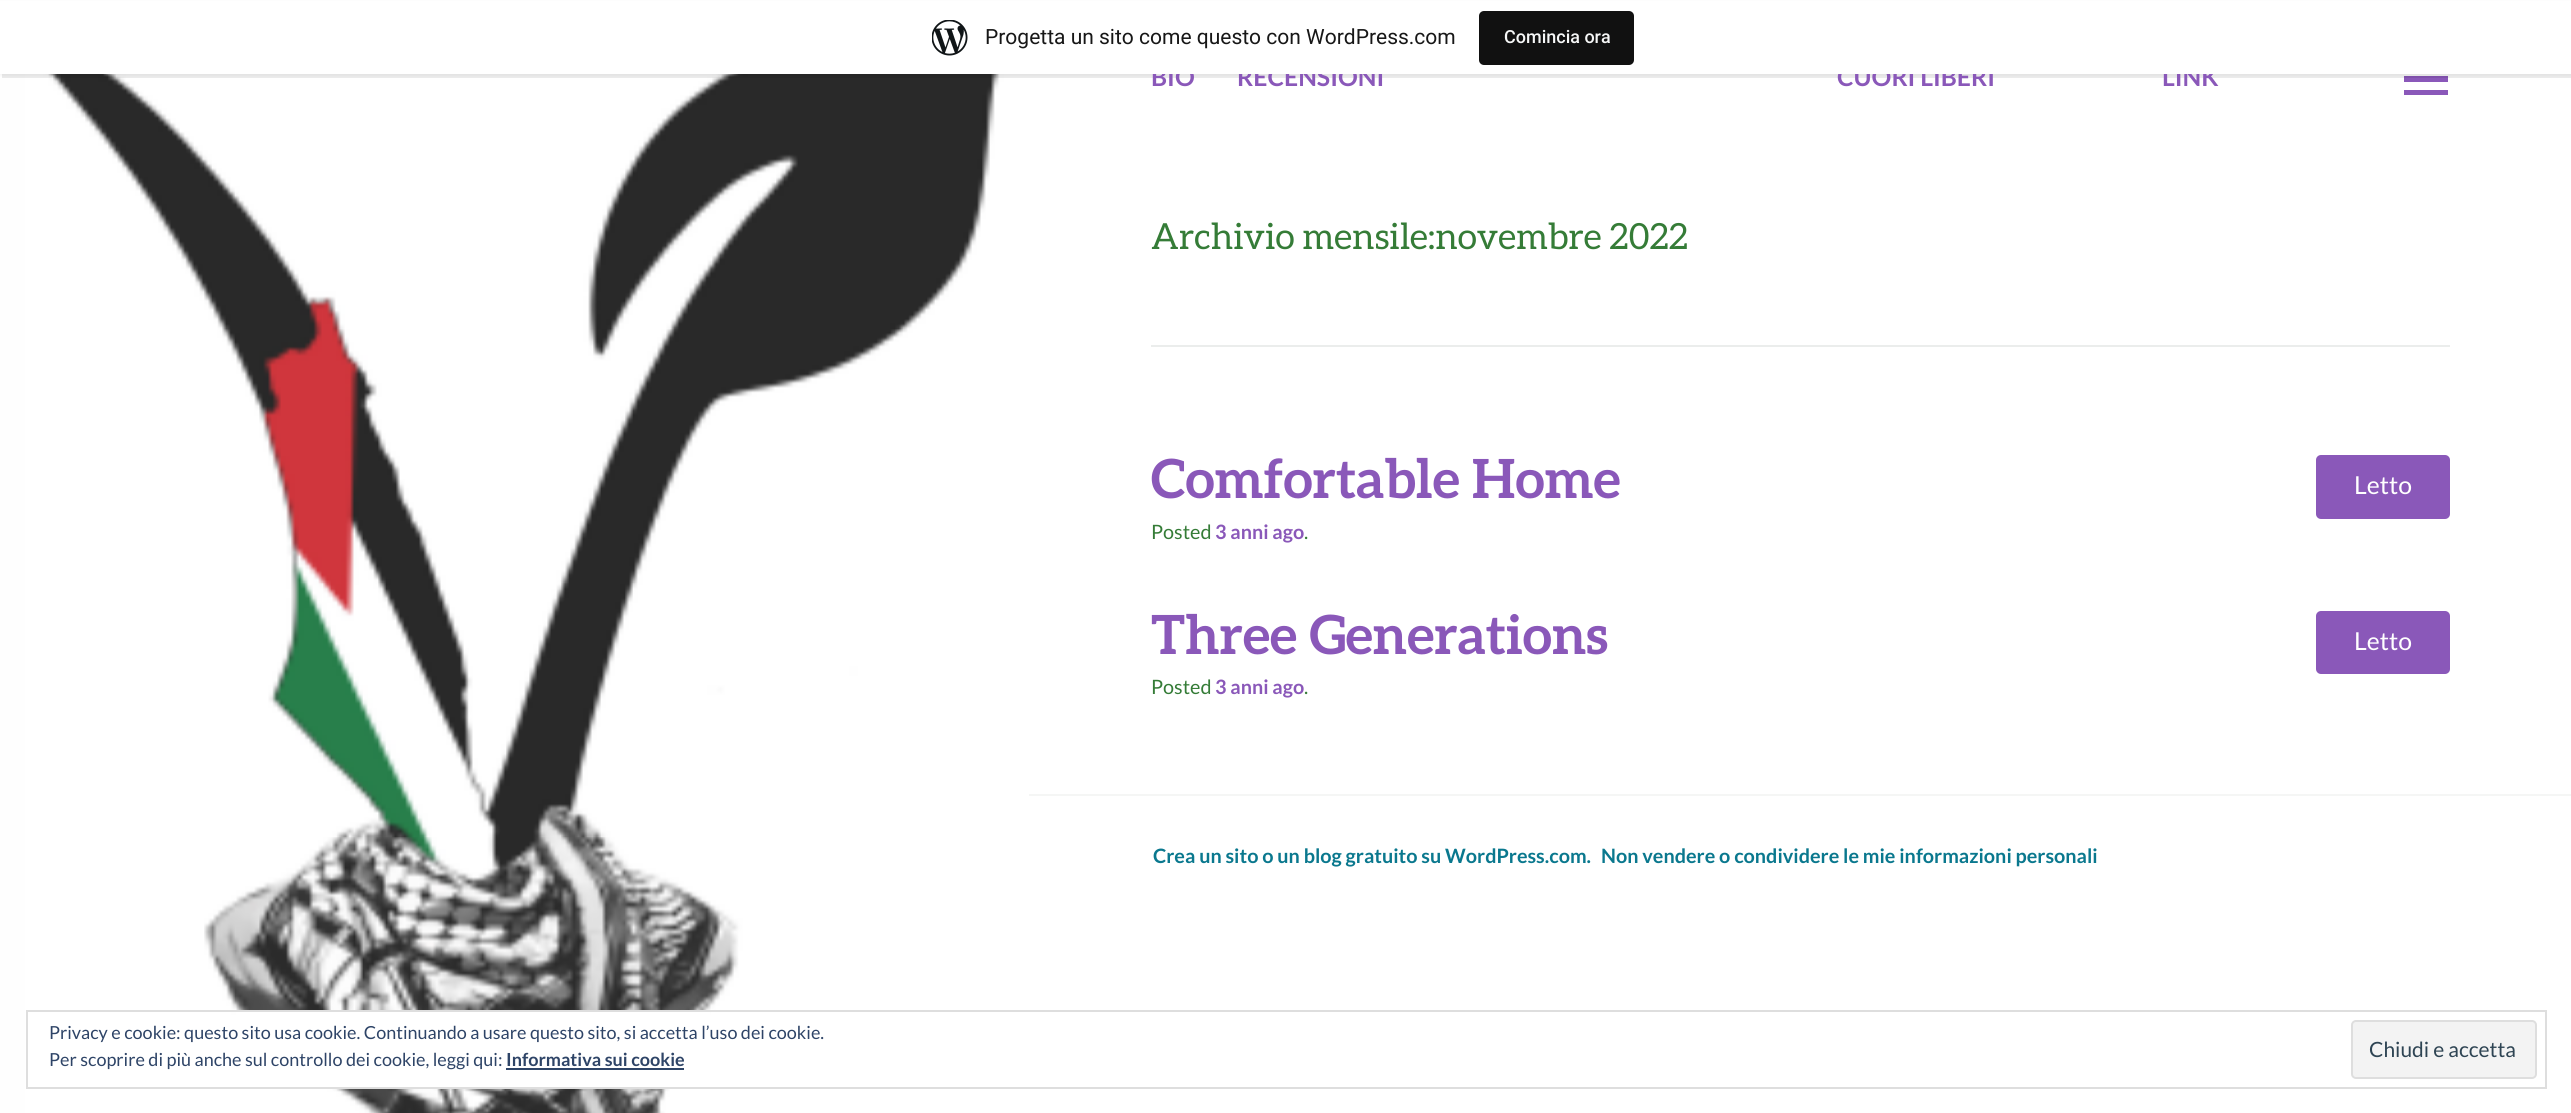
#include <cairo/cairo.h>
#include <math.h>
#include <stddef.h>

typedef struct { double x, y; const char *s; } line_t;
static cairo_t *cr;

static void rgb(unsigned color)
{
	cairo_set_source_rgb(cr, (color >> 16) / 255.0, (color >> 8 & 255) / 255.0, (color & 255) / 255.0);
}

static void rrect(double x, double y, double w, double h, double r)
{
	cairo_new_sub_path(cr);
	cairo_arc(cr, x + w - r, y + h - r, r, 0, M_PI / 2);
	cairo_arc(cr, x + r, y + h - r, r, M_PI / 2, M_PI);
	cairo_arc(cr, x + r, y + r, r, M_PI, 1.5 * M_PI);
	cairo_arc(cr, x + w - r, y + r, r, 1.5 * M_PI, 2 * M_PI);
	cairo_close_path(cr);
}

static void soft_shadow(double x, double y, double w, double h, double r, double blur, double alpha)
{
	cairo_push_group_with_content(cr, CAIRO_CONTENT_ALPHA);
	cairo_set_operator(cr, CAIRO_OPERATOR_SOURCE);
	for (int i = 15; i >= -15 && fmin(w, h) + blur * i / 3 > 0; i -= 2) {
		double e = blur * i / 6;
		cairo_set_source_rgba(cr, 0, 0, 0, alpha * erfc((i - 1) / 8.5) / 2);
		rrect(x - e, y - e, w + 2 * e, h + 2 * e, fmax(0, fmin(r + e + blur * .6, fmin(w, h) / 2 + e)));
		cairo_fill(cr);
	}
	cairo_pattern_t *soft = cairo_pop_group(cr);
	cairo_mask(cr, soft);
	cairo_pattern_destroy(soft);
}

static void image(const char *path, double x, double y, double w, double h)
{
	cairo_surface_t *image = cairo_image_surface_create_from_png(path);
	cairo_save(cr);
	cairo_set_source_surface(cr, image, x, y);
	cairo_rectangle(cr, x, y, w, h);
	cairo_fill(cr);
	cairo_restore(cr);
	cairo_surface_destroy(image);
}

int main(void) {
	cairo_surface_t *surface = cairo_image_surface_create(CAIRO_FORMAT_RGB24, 2571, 1113);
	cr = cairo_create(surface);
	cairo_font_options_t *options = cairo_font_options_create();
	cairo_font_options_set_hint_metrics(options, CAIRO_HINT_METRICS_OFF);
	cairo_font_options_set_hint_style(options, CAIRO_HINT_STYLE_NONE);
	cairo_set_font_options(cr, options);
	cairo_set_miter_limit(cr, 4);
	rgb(0xffffff);
	cairo_paint(cr);
	image("img/2.png", 0, 74, 1029, 1039);
	rgb(0x8a58b9);
	cairo_new_path(cr);
	cairo_move_to(cr, 2404, 95);
	cairo_line_to(cr, 2404, 90);
	cairo_line_to(cr, 2448, 90);
	cairo_line_to(cr, 2448, 95);
	cairo_close_path(cr);
	cairo_move_to(cr, 2404, 63);
	cairo_line_to(cr, 2448, 63);
	cairo_line_to(cr, 2448, 68);
	cairo_line_to(cr, 2404, 68);
	cairo_close_path(cr);
	cairo_move_to(cr, 2404, 82);
	cairo_line_to(cr, 2404, 76);
	cairo_line_to(cr, 2448, 76);
	cairo_line_to(cr, 2448, 82);
	cairo_close_path(cr);
	cairo_fill(cr);
	rgb(0x000000);
	soft_shadow(0, 2, 2571, 73, 0, 1.5, 0.05);
	cairo_set_source_rgba(cr, 0, 0, 0, 0.08);
	cairo_new_path(cr);
	cairo_move_to(cr, 2, 74);
	cairo_line_to(cr, 2, 78);
	cairo_line_to(cr, 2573, 78);
	cairo_line_to(cr, 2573, 5);
	cairo_line_to(cr, 2571, 5);
	cairo_line_to(cr, 2571, 74);
	cairo_close_path(cr);
	cairo_fill(cr);
	rgb(0xebedec);
	cairo_rectangle(cr, 1151, 345, 1299, 2);
	cairo_fill(cr);
	rgb(0x8a58b9);
	rrect(2316, 455, 134, 64, 5);
	cairo_fill(cr);
	rrect(2316, 611, 134, 63, 5);
	cairo_fill(cr);
	rgb(0xf5f6f5);
	cairo_rectangle(cr, 1029, 794, 1542, 2);
	cairo_fill(cr);
	rgb(0xffffff);
	cairo_rectangle(cr, 236, 1012, 474, 75);
	cairo_fill(cr);
	cairo_rectangle(cr, 27, 1011, 2519, 77);
	rgb(0xdedede);
	cairo_stroke(cr);
	rgb(0xf3f3f3);
	rrect(2352, 1021, 184, 57, 4);
	cairo_fill_preserve(cr);
	rgb(0xdedede);
	cairo_stroke(cr);
	rgb(0x2e4467);
	cairo_rectangle(cr, 506, 1068, 178, 2);
	cairo_fill(cr);
	cairo_select_font_face(cr, "Lato", CAIRO_FONT_SLANT_NORMAL, CAIRO_FONT_WEIGHT_BOLD);
	cairo_set_font_size(cr, 24.75);
	rgb(0x8a58b9);
	{
		static const line_t items[] = {
			{1151, 86, "BIO"},
			{1237, 86, "RECENSIONI"},
			{1837, 86, "CUORI LIBERI"},
			{2162, 86, "LINK"},
		};
		for (size_t i = 0; i < sizeof items / sizeof *items; i++) {
			cairo_move_to(cr, items[i].x, items[i].y);
			cairo_show_text(cr, items[i].s);
		}
	}
	rgb(0xffffff);
	cairo_rectangle(cr, 0, 1, 2571, 73);
	cairo_fill(cr);
	image("img/1.png", 932, 20, 36, 36);
	cairo_select_font_face(cr, "Roboto", CAIRO_FONT_SLANT_NORMAL, CAIRO_FONT_WEIGHT_NORMAL);
	cairo_set_font_size(cr, 21);
	rgb(0x171717);
	cairo_move_to(cr, 985, 44);
	cairo_show_text(cr, "Progetta un sito come questo con WordPress.com");
	rgb(0x111111);
	rrect(1479, 11, 155, 54, 5);
	cairo_fill(cr);
	cairo_select_font_face(cr, "Roboto Medium", CAIRO_FONT_SLANT_NORMAL, CAIRO_FONT_WEIGHT_NORMAL);
	cairo_set_font_size(cr, 18);
	rgb(0xf6f7f7);
	cairo_move_to(cr, 1504, 43);
	cairo_show_text(cr, "Comincia ora");
	cairo_select_font_face(cr, "Aleo", CAIRO_FONT_SLANT_NORMAL, CAIRO_FONT_WEIGHT_NORMAL);
	cairo_set_font_size(cr, 36);
	rgb(0x357c37);
	cairo_move_to(cr, 1151, 249);
	cairo_show_text(cr, "Archivio mensile:novembre 2022");
	cairo_select_font_face(cr, "Aleo", CAIRO_FONT_SLANT_NORMAL, CAIRO_FONT_WEIGHT_BOLD);
	cairo_set_font_size(cr, 54);
	rgb(0x8a58b9);
	cairo_move_to(cr, 1151, 498);
	cairo_show_text(cr, "Comfortable Home");
	cairo_select_font_face(cr, "Lato", CAIRO_FONT_SLANT_NORMAL, CAIRO_FONT_WEIGHT_NORMAL);
	cairo_set_font_size(cr, 24.75);
	rgb(0xffffff);
	cairo_move_to(cr, 2354, 494);
	cairo_show_text(cr, "Letto");
	cairo_set_font_size(cr, 19.8);
	rgb(0x357c37);
	cairo_move_to(cr, 1151, 539);
	cairo_show_text(cr, "Posted");
	cairo_select_font_face(cr, "Lato", CAIRO_FONT_SLANT_NORMAL, CAIRO_FONT_WEIGHT_BOLD);
	rgb(0x8a58b9);
	cairo_move_to(cr, 1215, 539);
	cairo_show_text(cr, "3 anni ago");
	cairo_select_font_face(cr, "Lato", CAIRO_FONT_SLANT_NORMAL, CAIRO_FONT_WEIGHT_NORMAL);
	rgb(0x357c37);
	cairo_move_to(cr, 1304, 539);
	cairo_show_text(cr, ".");
	cairo_select_font_face(cr, "Aleo", CAIRO_FONT_SLANT_NORMAL, CAIRO_FONT_WEIGHT_BOLD);
	cairo_set_font_size(cr, 54);
	rgb(0x8a58b9);
	cairo_move_to(cr, 1151, 654);
	cairo_show_text(cr, "Three Generations");
	cairo_select_font_face(cr, "Lato", CAIRO_FONT_SLANT_NORMAL, CAIRO_FONT_WEIGHT_NORMAL);
	cairo_set_font_size(cr, 24.75);
	rgb(0xffffff);
	cairo_move_to(cr, 2354, 650);
	cairo_show_text(cr, "Letto");
	cairo_set_font_size(cr, 19.8);
	rgb(0x357c37);
	cairo_move_to(cr, 1151, 694);
	cairo_show_text(cr, "Posted");
	cairo_select_font_face(cr, "Lato", CAIRO_FONT_SLANT_NORMAL, CAIRO_FONT_WEIGHT_BOLD);
	rgb(0x8a58b9);
	cairo_move_to(cr, 1215, 694);
	cairo_show_text(cr, "3 anni ago");
	cairo_select_font_face(cr, "Lato", CAIRO_FONT_SLANT_NORMAL, CAIRO_FONT_WEIGHT_NORMAL);
	rgb(0x357c37);
	cairo_move_to(cr, 1304, 694);
	cairo_show_text(cr, ".");
	cairo_select_font_face(cr, "Lato", CAIRO_FONT_SLANT_NORMAL, CAIRO_FONT_WEIGHT_BOLD);
	rgb(0x0a788e);
	cairo_move_to(cr, 1153, 863);
	cairo_show_text(cr, "Crea un sito o un blog gratuito su WordPress.com.");
	cairo_move_to(cr, 1601, 863);
	cairo_show_text(cr, "Non vendere o condividere le mie informazioni personali");
	cairo_select_font_face(cr, "Lato", CAIRO_FONT_SLANT_NORMAL, CAIRO_FONT_WEIGHT_NORMAL);
	cairo_set_font_size(cr, 18);
	rgb(0x2e4467);
	cairo_move_to(cr, 49, 1039);
	cairo_show_text(cr, "Privacy e cookie: questo sito usa cookie. Continuando a usare questo sito, si accetta l’uso dei cookie.");
	cairo_set_font_size(cr, 21);
	rgb(0x2e4453);
	cairo_move_to(cr, 2369, 1057);
	cairo_show_text(cr, "Chiudi e accetta");
	cairo_set_font_size(cr, 18);
	rgb(0x2e4467);
	cairo_move_to(cr, 49, 1066);
	cairo_show_text(cr, "Per scoprire di più anche sul controllo dei cookie, leggi qui:");
	cairo_select_font_face(cr, "Lato", CAIRO_FONT_SLANT_NORMAL, CAIRO_FONT_WEIGHT_BOLD);
	cairo_move_to(cr, 506, 1066);
	cairo_show_text(cr, "Informativa sui cookie");
	cairo_surface_write_to_png(surface, "page.png");
	cairo_font_options_destroy(options);
	cairo_destroy(cr);
	cairo_surface_destroy(surface);
	return 0;
}
